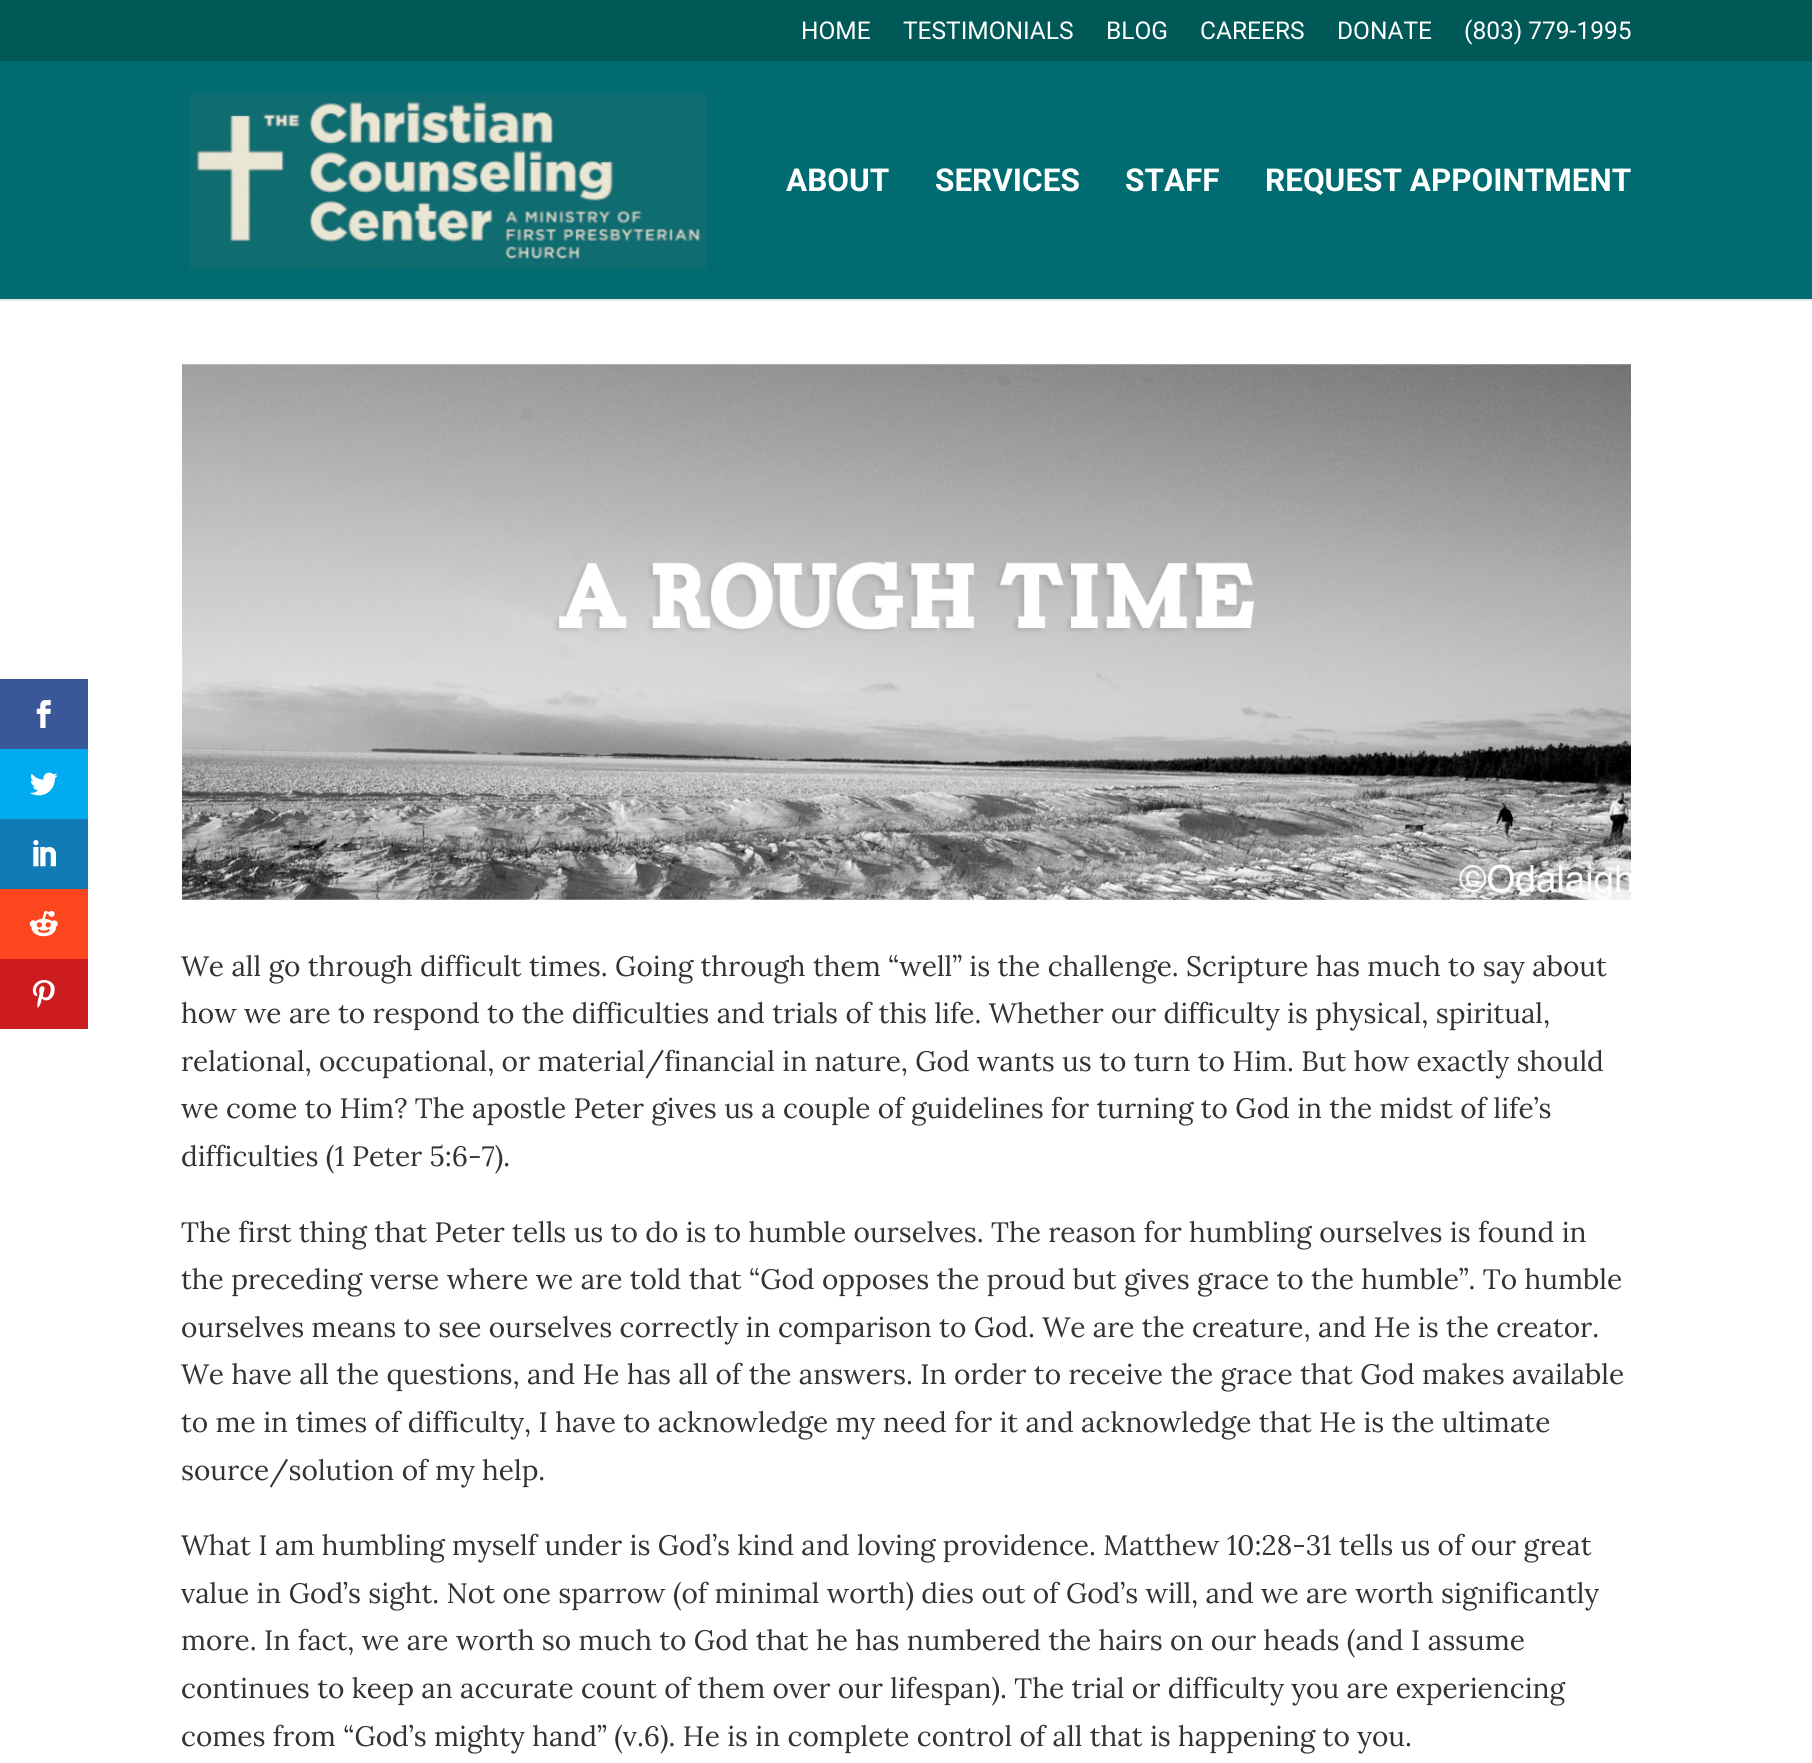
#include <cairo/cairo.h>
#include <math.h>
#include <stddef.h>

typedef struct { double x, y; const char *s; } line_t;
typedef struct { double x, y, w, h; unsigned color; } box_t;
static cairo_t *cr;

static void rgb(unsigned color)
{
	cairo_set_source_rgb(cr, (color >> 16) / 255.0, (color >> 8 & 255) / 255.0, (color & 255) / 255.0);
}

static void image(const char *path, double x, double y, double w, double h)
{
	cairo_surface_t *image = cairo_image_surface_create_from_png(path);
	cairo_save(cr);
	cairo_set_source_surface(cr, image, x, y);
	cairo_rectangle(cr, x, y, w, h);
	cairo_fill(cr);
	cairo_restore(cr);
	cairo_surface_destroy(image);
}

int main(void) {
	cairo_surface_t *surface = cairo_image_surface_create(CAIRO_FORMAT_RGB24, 1812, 1763);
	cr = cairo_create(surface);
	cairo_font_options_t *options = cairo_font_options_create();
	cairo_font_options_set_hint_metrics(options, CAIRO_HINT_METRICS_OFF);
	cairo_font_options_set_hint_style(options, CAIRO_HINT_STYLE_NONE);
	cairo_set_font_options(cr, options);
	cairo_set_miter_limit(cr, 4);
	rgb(0xffffff);
	cairo_paint(cr);
	rgb(0x3a579a);
	cairo_rectangle(cr, 0, 679, 88, 70);
	cairo_fill(cr);
	image("img/1.png", 36, 700, 15, 28);
	rgb(0x00abf0);
	cairo_rectangle(cr, 0, 749, 88, 70);
	cairo_fill(cr);
	image("img/2.png", 30, 772, 28, 24);
	rgb(0x127bb6);
	cairo_rectangle(cr, 0, 819, 88, 70);
	cairo_fill(cr);
	image("img/3.png", 33, 840, 23, 27);
	rgb(0xfc461e);
	cairo_rectangle(cr, 0, 889, 88, 70);
	cairo_fill(cr);
	image("img/4.png", 29, 910, 29, 27);
	rgb(0xcd1c1f);
	cairo_rectangle(cr, 0, 959, 88, 70);
	cairo_fill(cr);
	image("img/5.png", 32, 980, 23, 28);
	{
		static const box_t items[] = {
			{0, 0, 1812, 61, 0x005957},
			{0, 299, 1812, 2, 0xe6e6e6},
			{0, 61, 1812, 238, 0x006c71},
		};
		for (size_t i = 0; i < sizeof items / sizeof *items; i++) {
			rgb(items[i].color);
			cairo_rectangle(cr, items[i].x, items[i].y, items[i].w, items[i].h);
			cairo_fill(cr);
		}
	}
	image("img/6.png", 189, 93, 518, 175);
	image("img/7.png", 182, 364, 1449, 536);
	cairo_select_font_face(cr, "Roboto", CAIRO_FONT_SLANT_NORMAL, CAIRO_FONT_WEIGHT_NORMAL);
	cairo_set_font_size(cr, 24.5);
	rgb(0xffffff);
	{
		static const line_t items[] = {
			{801, 39, "HOME"},
			{903, 39, "TESTIMONIALS"},
			{1106, 39, "BLOG"},
			{1200, 39, "CAREERS"},
			{1337, 39, "DONATE"},
			{1464, 39, "(803) 779-1995"},
		};
		for (size_t i = 0; i < sizeof items / sizeof *items; i++) {
			cairo_move_to(cr, items[i].x, items[i].y);
			cairo_show_text(cr, items[i].s);
		}
	}
	cairo_select_font_face(cr, "Roboto", CAIRO_FONT_SLANT_NORMAL, CAIRO_FONT_WEIGHT_BOLD);
	cairo_set_font_size(cr, 31.5);
	{
		static const line_t items[] = {
			{786, 191, "ABOUT"},
			{935, 191, "SERVICES"},
			{1125, 191, "STAFF"},
			{1265, 191, "REQUEST APPOINTMENT"},
		};
		for (size_t i = 0; i < sizeof items / sizeof *items; i++) {
			cairo_move_to(cr, items[i].x, items[i].y);
			cairo_show_text(cr, items[i].s);
		}
	}
	cairo_select_font_face(cr, "Lora", CAIRO_FONT_SLANT_NORMAL, CAIRO_FONT_WEIGHT_NORMAL);
	cairo_set_font_size(cr, 28);
	rgb(0x333333);
	{
		static const line_t items[] = {
			{181, 976, "We all go through difficult times. Going through them “well” is the challenge. Scripture has much to say about"},
			{181, 1023, "how we are to respond to the difficulties and trials of this life. Whether our difficulty is physical, spiritual,"},
			{181, 1071, "relational, occupational, or material/financial in nature, God wants us to turn to Him. But how exactly should"},
			{181, 1118, "we come to Him? The apostle Peter gives us a couple of guidelines for turning to God in the midst of life’s"},
			{181, 1166, "difficulties (1 Peter 5:6-7)."},
			{181, 1242, "The first thing that Peter tells us to do is to humble ourselves. The reason for humbling ourselves is found in"},
			{181, 1289, "the preceding verse where we are told that “God opposes the proud but gives grace to the humble”. To humble"},
			{181, 1337, "ourselves means to see ourselves correctly in comparison to God. We are the creature, and He is the creator."},
			{181, 1384, "We have all the questions, and He has all of the answers. In order to receive the grace that God makes available"},
			{181, 1432, "to me in times of difficulty, I have to acknowledge my need for it and acknowledge that He is the ultimate"},
			{181, 1480, "source/solution of my help."},
			{181, 1555, "What I am humbling myself under is God’s kind and loving providence. Matthew 10:28-31 tells us of our great"},
			{181, 1603, "value in God’s sight. Not one sparrow (of minimal worth) dies out of God’s will, and we are worth significantly"},
			{181, 1650, "more. In fact, we are worth so much to God that he has numbered the hairs on our heads (and I assume"},
			{181, 1698, "continues to keep an accurate count of them over our lifespan). The trial or difficulty you are experiencing"},
			{181, 1746, "comes from “God’s mighty hand” (v.6). He is in complete control of all that is happening to you."},
		};
		for (size_t i = 0; i < sizeof items / sizeof *items; i++) {
			cairo_move_to(cr, items[i].x, items[i].y);
			cairo_show_text(cr, items[i].s);
		}
	}
	cairo_surface_write_to_png(surface, "page.png");
	cairo_font_options_destroy(options);
	cairo_destroy(cr);
	cairo_surface_destroy(surface);
	return 0;
}
